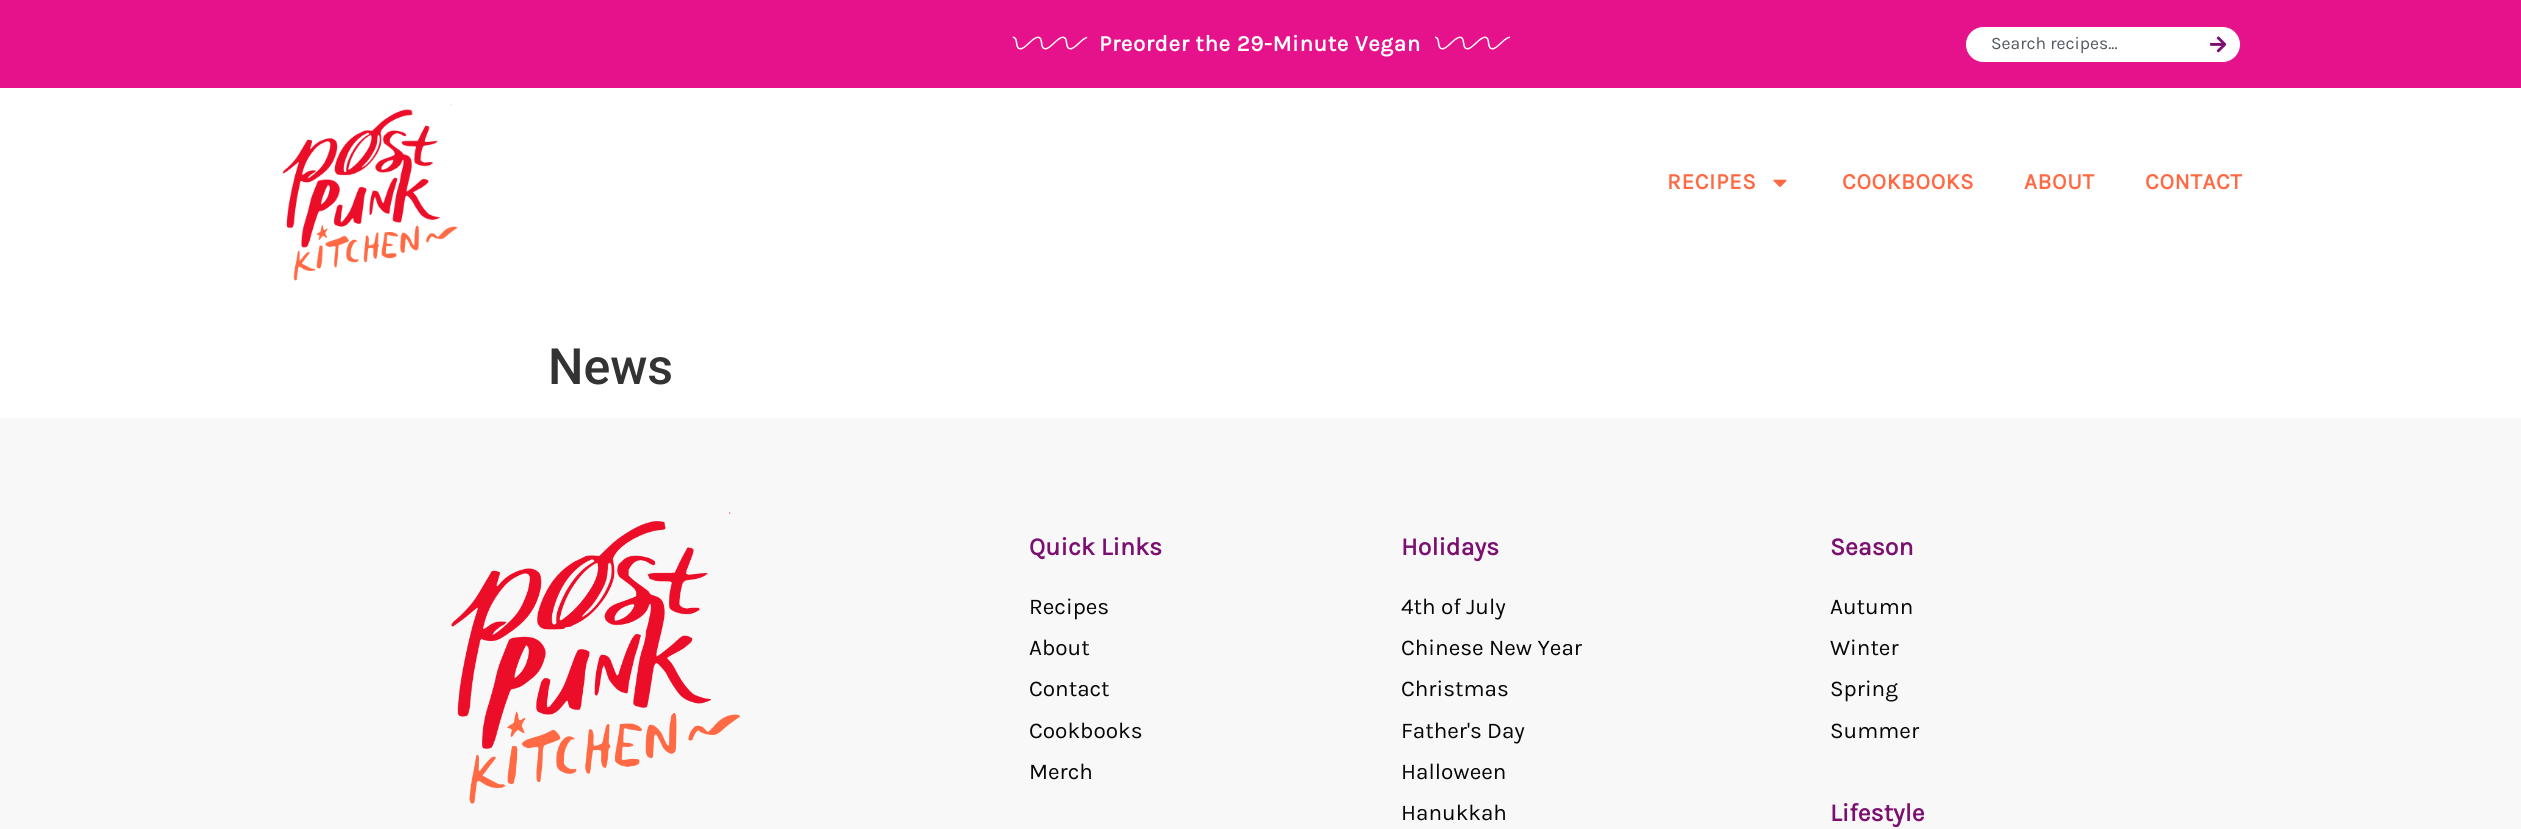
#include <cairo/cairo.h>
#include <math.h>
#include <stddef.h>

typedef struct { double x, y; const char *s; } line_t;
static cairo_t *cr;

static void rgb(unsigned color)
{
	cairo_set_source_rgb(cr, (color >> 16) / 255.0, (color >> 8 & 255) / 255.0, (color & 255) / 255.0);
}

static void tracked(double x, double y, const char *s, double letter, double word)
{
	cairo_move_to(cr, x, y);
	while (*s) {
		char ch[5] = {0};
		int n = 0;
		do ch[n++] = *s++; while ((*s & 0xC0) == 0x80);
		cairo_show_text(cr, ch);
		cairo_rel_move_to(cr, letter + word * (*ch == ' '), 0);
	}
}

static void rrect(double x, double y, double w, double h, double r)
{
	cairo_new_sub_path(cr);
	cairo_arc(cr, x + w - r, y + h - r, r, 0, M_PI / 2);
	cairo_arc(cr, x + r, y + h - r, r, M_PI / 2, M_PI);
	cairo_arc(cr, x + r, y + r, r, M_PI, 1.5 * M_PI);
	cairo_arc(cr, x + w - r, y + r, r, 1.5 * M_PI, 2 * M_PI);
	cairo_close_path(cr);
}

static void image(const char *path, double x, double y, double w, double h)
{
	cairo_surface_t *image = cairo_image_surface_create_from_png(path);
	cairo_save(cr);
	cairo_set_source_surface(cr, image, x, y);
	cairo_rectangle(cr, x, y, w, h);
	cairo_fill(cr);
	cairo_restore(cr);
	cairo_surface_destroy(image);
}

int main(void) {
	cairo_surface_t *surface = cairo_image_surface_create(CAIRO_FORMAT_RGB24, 2521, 829);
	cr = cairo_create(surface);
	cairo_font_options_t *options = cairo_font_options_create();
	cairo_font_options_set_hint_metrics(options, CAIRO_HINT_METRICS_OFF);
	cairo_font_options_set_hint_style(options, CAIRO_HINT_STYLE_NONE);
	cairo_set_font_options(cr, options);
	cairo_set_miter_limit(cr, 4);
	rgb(0xffffff);
	cairo_paint(cr);
	rgb(0xe5128b);
	cairo_rectangle(cr, 0, 0, 2521, 88);
	cairo_fill(cr);
	image("img/1.png", 1012, 36, 76, 14);
	image("img/2.png", 1435, 36, 75, 14);
	rgb(0xffffff);
	rrect(1965.5, 26.5, 275, 36, 18);
	cairo_fill_preserve(cr);
	rgb(0xe5128b);
	cairo_set_line_width(cr, 1);
	cairo_stroke(cr);
	image("img/3.png", 2210, 36, 16, 17);
	image("img/4.png", 282, 104, 176, 177);
	image("img/5.png", 1773, 179, 14, 8);
	rgb(0xf8f8f8);
	cairo_rectangle(cr, 0, 418, 2521, 411);
	cairo_fill(cr);
	image("img/6.png", 451, 512, 289, 292);
	cairo_select_font_face(cr, "Karla", CAIRO_FONT_SLANT_NORMAL, CAIRO_FONT_WEIGHT_BOLD);
	cairo_set_font_size(cr, 22.5);
	rgb(0xffffff);
	tracked(1099, 51, "Preorder the 29-Minute Vegan", 0.6, 0);
	cairo_select_font_face(cr, "Karla", CAIRO_FONT_SLANT_NORMAL, CAIRO_FONT_WEIGHT_NORMAL);
	cairo_set_font_size(cr, 17.5);
	rgb(0x515962);
	cairo_move_to(cr, 1991, 49);
	cairo_show_text(cr, "Search recipes...");
	cairo_select_font_face(cr, "Karla", CAIRO_FONT_SLANT_NORMAL, CAIRO_FONT_WEIGHT_BOLD);
	cairo_set_font_size(cr, 22.5);
	rgb(0xff6a44);
	{
		static const line_t items[] = {
			{1667, 189, "RECIPES"},
			{1842, 189, "COOKBOOKS"},
			{2024, 189, "ABOUT"},
			{2145, 189, "CONTACT"},
		};
		for (size_t i = 0; i < sizeof items / sizeof *items; i++) {
			tracked(items[i].x, items[i].y, items[i].s, 0.6, 0);
		}
	}
	cairo_select_font_face(cr, "Roboto Medium", CAIRO_FONT_SLANT_NORMAL, CAIRO_FONT_WEIGHT_NORMAL);
	cairo_set_font_size(cr, 50);
	rgb(0x333333);
	cairo_move_to(cr, 548, 384);
	cairo_show_text(cr, "News");
	cairo_select_font_face(cr, "Karla", CAIRO_FONT_SLANT_NORMAL, CAIRO_FONT_WEIGHT_BOLD);
	cairo_set_font_size(cr, 25);
	rgb(0x7b1070);
	cairo_move_to(cr, 1029, 555);
	cairo_show_text(cr, "Quick Links");
	cairo_select_font_face(cr, "Karla", CAIRO_FONT_SLANT_NORMAL, CAIRO_FONT_WEIGHT_NORMAL);
	cairo_set_font_size(cr, 22.5);
	rgb(0x060606);
	{
		static const line_t items[] = {
			{1029, 614, "Recipes"},
			{1029, 655, "About"},
			{1029, 696, "Contact"},
			{1029, 738, "Cookbooks"},
			{1029, 779, "Merch"},
		};
		for (size_t i = 0; i < sizeof items / sizeof *items; i++) {
			cairo_move_to(cr, items[i].x, items[i].y);
			cairo_show_text(cr, items[i].s);
		}
	}
	cairo_select_font_face(cr, "Karla", CAIRO_FONT_SLANT_NORMAL, CAIRO_FONT_WEIGHT_BOLD);
	cairo_set_font_size(cr, 25);
	rgb(0x7b1070);
	cairo_move_to(cr, 1401, 555);
	cairo_show_text(cr, "Holidays");
	cairo_select_font_face(cr, "Karla", CAIRO_FONT_SLANT_NORMAL, CAIRO_FONT_WEIGHT_NORMAL);
	cairo_set_font_size(cr, 22.5);
	rgb(0x060606);
	{
		static const line_t items[] = {
			{1401, 614, "4th of July"},
			{1401, 655, "Chinese New Year"},
			{1401, 696, "Christmas"},
			{1401, 738, "Father's Day"},
			{1401, 779, "Halloween"},
			{1401, 820, "Hanukkah"},
		};
		for (size_t i = 0; i < sizeof items / sizeof *items; i++) {
			cairo_move_to(cr, items[i].x, items[i].y);
			cairo_show_text(cr, items[i].s);
		}
	}
	cairo_select_font_face(cr, "Karla", CAIRO_FONT_SLANT_NORMAL, CAIRO_FONT_WEIGHT_BOLD);
	cairo_set_font_size(cr, 25);
	rgb(0x7b1070);
	cairo_move_to(cr, 1830, 555);
	cairo_show_text(cr, "Season");
	cairo_select_font_face(cr, "Karla", CAIRO_FONT_SLANT_NORMAL, CAIRO_FONT_WEIGHT_NORMAL);
	cairo_set_font_size(cr, 22.5);
	rgb(0x060606);
	{
		static const line_t items[] = {
			{1830, 614, "Autumn"},
			{1830, 655, "Winter"},
			{1830, 696, "Spring"},
			{1830, 738, "Summer"},
		};
		for (size_t i = 0; i < sizeof items / sizeof *items; i++) {
			cairo_move_to(cr, items[i].x, items[i].y);
			cairo_show_text(cr, items[i].s);
		}
	}
	cairo_select_font_face(cr, "Karla", CAIRO_FONT_SLANT_NORMAL, CAIRO_FONT_WEIGHT_BOLD);
	cairo_set_font_size(cr, 25);
	rgb(0x7b1070);
	cairo_move_to(cr, 1830, 821);
	cairo_show_text(cr, "Lifestyle");
	cairo_surface_write_to_png(surface, "page.png");
	cairo_font_options_destroy(options);
	cairo_destroy(cr);
	cairo_surface_destroy(surface);
	return 0;
}
